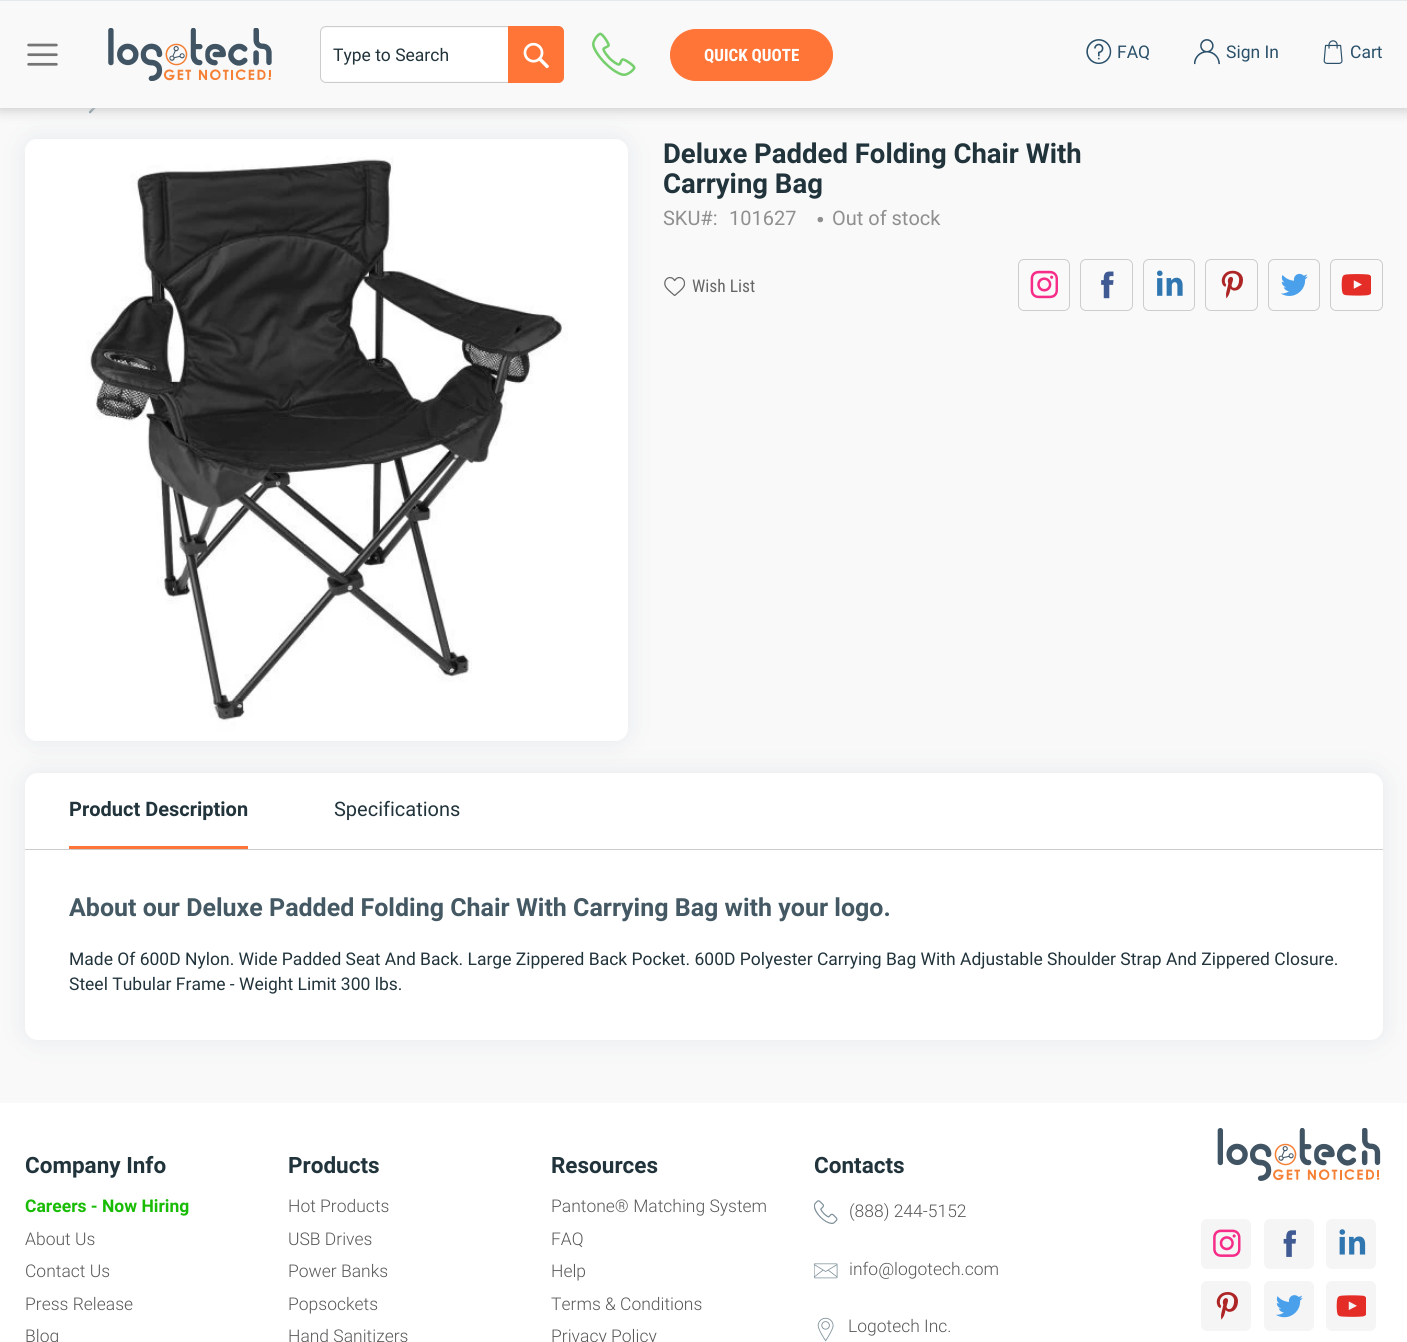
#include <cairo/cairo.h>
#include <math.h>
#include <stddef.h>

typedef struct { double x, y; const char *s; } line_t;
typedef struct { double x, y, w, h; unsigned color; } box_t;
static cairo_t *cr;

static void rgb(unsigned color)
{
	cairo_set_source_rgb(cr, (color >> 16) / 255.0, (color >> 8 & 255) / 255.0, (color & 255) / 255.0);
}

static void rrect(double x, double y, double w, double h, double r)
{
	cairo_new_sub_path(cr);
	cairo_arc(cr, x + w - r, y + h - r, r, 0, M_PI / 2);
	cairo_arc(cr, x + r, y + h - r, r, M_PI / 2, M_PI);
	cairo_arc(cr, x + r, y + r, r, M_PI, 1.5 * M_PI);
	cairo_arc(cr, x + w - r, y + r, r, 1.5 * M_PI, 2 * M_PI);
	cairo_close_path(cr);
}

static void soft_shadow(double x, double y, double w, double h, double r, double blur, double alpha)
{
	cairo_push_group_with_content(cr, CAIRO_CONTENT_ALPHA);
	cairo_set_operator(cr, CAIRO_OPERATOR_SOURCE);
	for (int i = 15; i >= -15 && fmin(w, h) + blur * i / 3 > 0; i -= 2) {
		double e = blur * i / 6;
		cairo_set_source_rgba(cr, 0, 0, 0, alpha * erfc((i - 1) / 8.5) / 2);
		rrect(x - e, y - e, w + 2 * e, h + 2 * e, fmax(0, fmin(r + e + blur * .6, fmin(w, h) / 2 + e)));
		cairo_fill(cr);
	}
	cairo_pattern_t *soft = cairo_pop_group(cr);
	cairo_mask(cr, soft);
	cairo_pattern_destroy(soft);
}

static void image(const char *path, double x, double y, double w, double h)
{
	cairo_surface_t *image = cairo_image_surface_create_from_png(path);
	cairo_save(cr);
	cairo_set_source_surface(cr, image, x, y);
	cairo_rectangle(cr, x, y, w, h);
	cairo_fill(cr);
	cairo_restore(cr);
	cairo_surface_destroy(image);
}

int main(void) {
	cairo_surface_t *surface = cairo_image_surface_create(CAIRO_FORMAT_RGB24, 1407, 1342);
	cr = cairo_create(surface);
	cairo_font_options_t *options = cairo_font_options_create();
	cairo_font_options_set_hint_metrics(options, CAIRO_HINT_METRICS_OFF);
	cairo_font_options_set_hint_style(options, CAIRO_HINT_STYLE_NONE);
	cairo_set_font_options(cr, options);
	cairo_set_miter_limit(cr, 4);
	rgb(0xf9f9f9);
	cairo_paint(cr);
	image("img/8.png", 89, 108, 7, 6);
	rgb(0xcccccc);
	soft_shadow(0, 15, 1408, 90, 0, 7, 1);
	soft_shadow(0, 0, 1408, 108, 0, 7, 1);
	image("img/10.png", 664, 277, 21, 19);
	rgb(0x305a76);
	soft_shadow(25, 139, 603, 602, 13, 12.5, 0.1);
	rgb(0xf9f9f9);
	cairo_rectangle(cr, 0, 1, 1407, 107);
	cairo_fill(cr);
	image("img/1.png", 27, 43, 31, 23);
	image("img/2.png", 108, 28, 164, 53);
	rgb(0xffffff);
	rrect(321, 28, 242, 53, 5);
	cairo_fill(cr);
	rrect(320.5, 26.5, 243, 56, 5.5);
	rgb(0xcccccc);
	cairo_set_line_width(cr, 1);
	cairo_stroke(cr);
	rgb(0xff7537);
	cairo_new_path(cr);
	cairo_move_to(cr, 508, 26);
	cairo_line_to(cr, 558, 26);
	cairo_curve_to(cr, 561.5, 26, 564, 28.5, 564, 32);
	cairo_line_to(cr, 564, 77);
	cairo_curve_to(cr, 564, 80.5, 561.5, 83, 558, 83);
	cairo_line_to(cr, 508, 83);
	cairo_close_path(cr);
	cairo_fill(cr);
	image("img/3.png", 523, 42, 26, 27);
	image("img/4.png", 592, 32, 44, 44);
	rrect(670.5, 29.5, 162, 51, 25.5);
	cairo_fill_preserve(cr);
	cairo_stroke(cr);
	rgb(0xe5e9ec);
	cairo_rectangle(cr, 0, 0, 1407, 1);
	cairo_fill(cr);
	image("img/5.png", 1086, 39, 26, 26);
	image("img/6.png", 1194, 39, 26, 26);
	image("img/7.png", 1323, 40, 20, 24);
	rgb(0xffffff);
	rrect(25, 139, 603, 602, 13);
	cairo_fill(cr);
	image("img/9.png", 25, 139, 543, 602);
	rrect(1018.5, 259.5, 51, 51, 5.5);
	rgb(0xcccccc);
	cairo_stroke(cr);
	image("img/11.png", 1030, 270, 28, 29);
	rrect(1080.5, 259.5, 52, 51, 5.5);
	cairo_stroke(cr);
	image("img/12.png", 1101, 271, 13, 28);
	rrect(1143.5, 259.5, 51, 51, 5.5);
	cairo_stroke(cr);
	image("img/13.png", 1157, 270, 26, 26);
	rrect(1205.5, 259.5, 52, 51, 5.5);
	cairo_stroke(cr);
	image("img/14.png", 1221, 270, 22, 29);
	rrect(1268.5, 259.5, 51, 51, 5.5);
	cairo_stroke(cr);
	image("img/15.png", 1280, 273, 28, 23);
	rrect(1330.5, 259.5, 52, 51, 5.5);
	cairo_stroke(cr);
	image("img/16.png", 1341, 274, 30, 22);
	rgb(0x305a76);
	soft_shadow(25, 773, 1358, 267, 13, 12.5, 0.1);
	rgb(0xffffff);
	rrect(25, 773, 1358, 267, 13);
	cairo_fill(cr);
	{
		static const box_t items[] = {
			{69, 846, 179, 3, 0xff7537},
			{25, 849, 1358, 1, 0xcccccc},
			{0, 1103, 1407, 239, 0xffffff},
		};
		for (size_t i = 0; i < sizeof items / sizeof *items; i++) {
			rgb(items[i].color);
			cairo_rectangle(cr, items[i].x, items[i].y, items[i].w, items[i].h);
			cairo_fill(cr);
		}
	}
	image("img/17.png", 814, 1200, 24, 24);
	image("img/18.png", 814, 1263, 24, 16);
	image("img/19.png", 817, 1317, 17, 25);
	image("img/20.png", 1217, 1128, 164, 53);
	rgb(0xf5f5f5);
	rrect(1201, 1219, 50, 50, 6);
	cairo_fill(cr);
	image("img/21.png", 1213, 1229, 28, 28);
	rrect(1264, 1219, 50, 50, 6);
	cairo_fill(cr);
	image("img/22.png", 1283, 1230, 13, 27);
	rrect(1326, 1219, 50, 50, 6);
	cairo_fill(cr);
	image("img/23.png", 1339, 1229, 27, 26);
	rrect(1201, 1281, 50, 50, 6);
	cairo_fill(cr);
	image("img/24.png", 1216, 1292, 22, 28);
	rrect(1264, 1281, 50, 50, 6);
	cairo_fill(cr);
	image("img/25.png", 1276, 1295, 27, 23);
	rrect(1326, 1281, 50, 50, 6);
	cairo_fill(cr);
	image("img/26.png", 1336, 1295, 30, 22);
	cairo_select_font_face(cr, "Roboto", CAIRO_FONT_SLANT_NORMAL, CAIRO_FONT_WEIGHT_NORMAL);
	cairo_set_font_size(cr, 17.5);
	rgb(0x21333b);
	cairo_move_to(cr, 333, 61);
	cairo_show_text(cr, "Type to Search");
	cairo_select_font_face(cr, "Roboto Condensed", CAIRO_FONT_SLANT_NORMAL, CAIRO_FONT_WEIGHT_BOLD);
	cairo_set_font_size(cr, 17);
	rgb(0xffffff);
	cairo_move_to(cr, 704, 61);
	cairo_show_text(cr, "QUICK QUOTE");
	cairo_select_font_face(cr, "Roboto", CAIRO_FONT_SLANT_NORMAL, CAIRO_FONT_WEIGHT_NORMAL);
	cairo_set_font_size(cr, 17.5);
	rgb(0x2a506a);
	{
		static const line_t items[] = {
			{1117, 58, "FAQ"},
			{1226, 58, "Sign In"},
			{1350, 58, "Cart"},
		};
		for (size_t i = 0; i < sizeof items / sizeof *items; i++) {
			cairo_move_to(cr, items[i].x, items[i].y);
			cairo_show_text(cr, items[i].s);
		}
	}
	cairo_select_font_face(cr, "Roboto", CAIRO_FONT_SLANT_NORMAL, CAIRO_FONT_WEIGHT_BOLD);
	cairo_set_font_size(cr, 27.5);
	rgb(0x21333b);
	cairo_move_to(cr, 663, 163);
	cairo_show_text(cr, "Deluxe Padded Folding Chair With");
	cairo_move_to(cr, 663, 193);
	cairo_show_text(cr, "Carrying Bag");
	cairo_select_font_face(cr, "Roboto", CAIRO_FONT_SLANT_NORMAL, CAIRO_FONT_WEIGHT_NORMAL);
	cairo_set_font_size(cr, 20);
	rgb(0x8f8f8f);
	cairo_move_to(cr, 663, 225);
	cairo_show_text(cr, "SKU#:");
	cairo_move_to(cr, 729, 225);
	cairo_show_text(cr, "101627");
	cairo_set_font_size(cr, 50);
	cairo_move_to(cr, 814, 222);
	cairo_show_text(cr, ".");
	cairo_set_font_size(cr, 20);
	cairo_move_to(cr, 832, 225);
	cairo_show_text(cr, "Out of stock");
	cairo_select_font_face(cr, "Roboto Condensed", CAIRO_FONT_SLANT_NORMAL, CAIRO_FONT_WEIGHT_NORMAL);
	cairo_set_font_size(cr, 17.5);
	rgb(0x666666);
	cairo_move_to(cr, 692, 292);
	cairo_show_text(cr, "Wish List");
	cairo_select_font_face(cr, "Roboto", CAIRO_FONT_SLANT_NORMAL, CAIRO_FONT_WEIGHT_BOLD);
	cairo_set_font_size(cr, 20);
	rgb(0x21333b);
	cairo_move_to(cr, 69, 816);
	cairo_show_text(cr, "Product Description");
	cairo_select_font_face(cr, "Roboto", CAIRO_FONT_SLANT_NORMAL, CAIRO_FONT_WEIGHT_NORMAL);
	cairo_move_to(cr, 334, 816);
	cairo_show_text(cr, "Specifications");
	cairo_select_font_face(cr, "Roboto", CAIRO_FONT_SLANT_NORMAL, CAIRO_FONT_WEIGHT_BOLD);
	cairo_set_font_size(cr, 25);
	rgb(0x445963);
	cairo_move_to(cr, 69, 916);
	cairo_show_text(cr, "About our Deluxe Padded Folding Chair With Carrying Bag with your logo.");
	cairo_select_font_face(cr, "Roboto", CAIRO_FONT_SLANT_NORMAL, CAIRO_FONT_WEIGHT_NORMAL);
	cairo_set_font_size(cr, 17.5);
	rgb(0x21333b);
	cairo_move_to(cr, 69, 965);
	cairo_show_text(cr, "Made Of 600D Nylon. Wide Padded Seat And Back. Large Zippered Back Pocket. 600D Polyester Carrying Bag With Adjustable Shoulder Strap And Zippered Closure.");
	cairo_move_to(cr, 69, 990);
	cairo_show_text(cr, "Steel Tubular Frame - Weight Limit 300 lbs.");
	cairo_select_font_face(cr, "Roboto", CAIRO_FONT_SLANT_NORMAL, CAIRO_FONT_WEIGHT_BOLD);
	cairo_set_font_size(cr, 22.5);
	cairo_move_to(cr, 25, 1173);
	cairo_show_text(cr, "Company Info");
	cairo_set_font_size(cr, 17.5);
	rgb(0x18bc05);
	cairo_move_to(cr, 25, 1212);
	cairo_show_text(cr, "Careers - Now Hiring");
	cairo_select_font_face(cr, "Roboto Light", CAIRO_FONT_SLANT_NORMAL, CAIRO_FONT_WEIGHT_NORMAL);
	rgb(0x575757);
	{
		static const line_t items[] = {
			{25, 1245, "About Us"},
			{25, 1277, "Contact Us"},
			{25, 1310, "Press Release"},
			{25, 1342, "Blog"},
		};
		for (size_t i = 0; i < sizeof items / sizeof *items; i++) {
			cairo_move_to(cr, items[i].x, items[i].y);
			cairo_show_text(cr, items[i].s);
		}
	}
	cairo_select_font_face(cr, "Roboto", CAIRO_FONT_SLANT_NORMAL, CAIRO_FONT_WEIGHT_BOLD);
	cairo_set_font_size(cr, 22.5);
	rgb(0x21333b);
	cairo_move_to(cr, 288, 1173);
	cairo_show_text(cr, "Products");
	cairo_select_font_face(cr, "Roboto Light", CAIRO_FONT_SLANT_NORMAL, CAIRO_FONT_WEIGHT_NORMAL);
	cairo_set_font_size(cr, 17.5);
	rgb(0x575757);
	{
		static const line_t items[] = {
			{288, 1212, "Hot Products"},
			{288, 1245, "USB Drives"},
			{288, 1277, "Power Banks"},
			{288, 1310, "Popsockets"},
			{288, 1342, "Hand Sanitizers"},
		};
		for (size_t i = 0; i < sizeof items / sizeof *items; i++) {
			cairo_move_to(cr, items[i].x, items[i].y);
			cairo_show_text(cr, items[i].s);
		}
	}
	cairo_select_font_face(cr, "Roboto", CAIRO_FONT_SLANT_NORMAL, CAIRO_FONT_WEIGHT_BOLD);
	cairo_set_font_size(cr, 22.5);
	rgb(0x21333b);
	cairo_move_to(cr, 551, 1173);
	cairo_show_text(cr, "Resources");
	cairo_select_font_face(cr, "Roboto Light", CAIRO_FONT_SLANT_NORMAL, CAIRO_FONT_WEIGHT_NORMAL);
	cairo_set_font_size(cr, 17.5);
	rgb(0x575757);
	{
		static const line_t items[] = {
			{551, 1212, "Pantone® Matching System"},
			{551, 1245, "FAQ"},
			{551, 1277, "Help"},
			{551, 1310, "Terms & Conditions"},
			{551, 1342, "Privacy Policy"},
		};
		for (size_t i = 0; i < sizeof items / sizeof *items; i++) {
			cairo_move_to(cr, items[i].x, items[i].y);
			cairo_show_text(cr, items[i].s);
		}
	}
	cairo_select_font_face(cr, "Roboto", CAIRO_FONT_SLANT_NORMAL, CAIRO_FONT_WEIGHT_BOLD);
	cairo_set_font_size(cr, 22.5);
	rgb(0x21333b);
	cairo_move_to(cr, 814, 1173);
	cairo_show_text(cr, "Contacts");
	cairo_select_font_face(cr, "Roboto Light", CAIRO_FONT_SLANT_NORMAL, CAIRO_FONT_WEIGHT_NORMAL);
	cairo_set_font_size(cr, 17.5);
	rgb(0x575757);
	{
		static const line_t items[] = {
			{849, 1217, "(888) 244-5152"},
			{849, 1275, "info@logotech.com"},
			{848, 1332, "Logotech Inc."},
		};
		for (size_t i = 0; i < sizeof items / sizeof *items; i++) {
			cairo_move_to(cr, items[i].x, items[i].y);
			cairo_show_text(cr, items[i].s);
		}
	}
	cairo_surface_write_to_png(surface, "page.png");
	cairo_font_options_destroy(options);
	cairo_destroy(cr);
	cairo_surface_destroy(surface);
	return 0;
}
